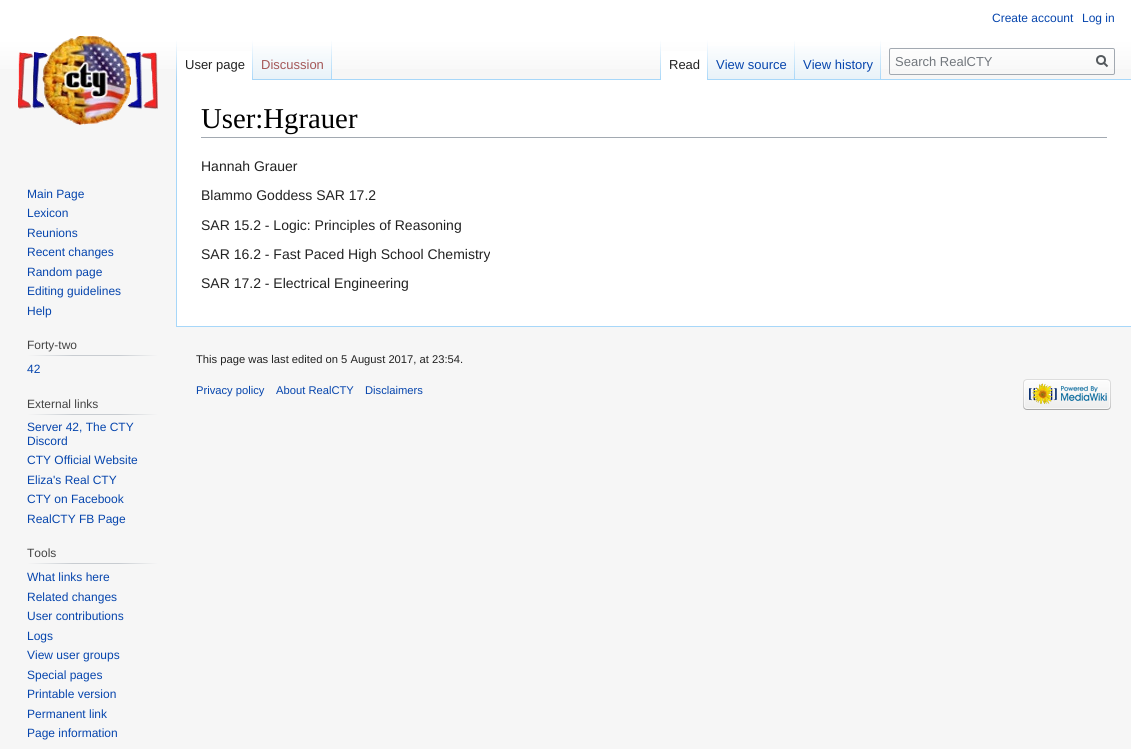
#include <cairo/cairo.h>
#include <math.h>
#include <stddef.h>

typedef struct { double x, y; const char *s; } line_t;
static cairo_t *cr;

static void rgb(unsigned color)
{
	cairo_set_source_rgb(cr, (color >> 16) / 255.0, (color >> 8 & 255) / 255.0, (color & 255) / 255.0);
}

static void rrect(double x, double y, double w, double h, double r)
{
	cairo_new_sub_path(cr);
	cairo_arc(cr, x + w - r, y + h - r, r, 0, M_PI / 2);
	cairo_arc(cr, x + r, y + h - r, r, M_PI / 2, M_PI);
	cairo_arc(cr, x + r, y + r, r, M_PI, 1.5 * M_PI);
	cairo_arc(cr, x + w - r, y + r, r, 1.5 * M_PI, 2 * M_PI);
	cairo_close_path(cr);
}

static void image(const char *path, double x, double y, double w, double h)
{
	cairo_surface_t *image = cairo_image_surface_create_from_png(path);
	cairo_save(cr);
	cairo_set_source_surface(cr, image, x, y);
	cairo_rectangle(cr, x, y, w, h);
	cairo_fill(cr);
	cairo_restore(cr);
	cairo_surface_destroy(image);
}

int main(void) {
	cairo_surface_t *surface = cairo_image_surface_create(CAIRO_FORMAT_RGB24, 1131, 749);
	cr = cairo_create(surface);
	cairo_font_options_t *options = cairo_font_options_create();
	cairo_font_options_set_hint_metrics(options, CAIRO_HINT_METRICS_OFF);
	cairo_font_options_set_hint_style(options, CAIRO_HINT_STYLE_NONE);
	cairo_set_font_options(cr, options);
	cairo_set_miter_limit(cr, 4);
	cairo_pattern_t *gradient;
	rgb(0xf6f6f6);
	cairo_paint(cr);
	gradient = cairo_pattern_create_linear(566, 0, 566, 80);
	cairo_pattern_add_color_stop_rgba(gradient, 0.5, 1, 1, 1, 1);
	cairo_pattern_add_color_stop_rgba(gradient, 1, 0.965, 0.965, 0.965, 1);
	cairo_set_source(cr, gradient);
	cairo_pattern_destroy(gradient);
	cairo_rectangle(cr, 0, 0, 1131, 69);
	cairo_fill(cr);
	rgb(0xa7d7f9);
	cairo_rectangle(cr, 176, 326, 955, 1);
	cairo_fill(cr);
	cairo_rectangle(cr, 176, 79, 1, 248);
	cairo_fill(cr);
	gradient = cairo_pattern_create_linear(177, 40, 177, 80);
	cairo_pattern_add_color_stop_rgba(gradient, 0, 0.655, 0.843, 0.976, 0);
	cairo_pattern_add_color_stop_rgba(gradient, 1, 0.655, 0.843, 0.976, 1);
	cairo_set_source(cr, gradient);
	cairo_pattern_destroy(gradient);
	cairo_rectangle(cr, 176, 40, 1, 40);
	cairo_fill(cr);
	rgb(0xffffff);
	cairo_rectangle(cr, 177, 51, 75, 29);
	cairo_fill(cr);
	gradient = cairo_pattern_create_linear(253, 40, 253, 80);
	cairo_pattern_add_color_stop_rgba(gradient, 0, 1, 1, 1, 1);
	cairo_pattern_add_color_stop_rgba(gradient, 1, 0.655, 0.843, 0.976, 1);
	cairo_set_source(cr, gradient);
	cairo_pattern_destroy(gradient);
	cairo_rectangle(cr, 252, 40, 1, 40);
	cairo_fill(cr);
	gradient = cairo_pattern_create_linear(293, 80, 293, 40);
	cairo_pattern_add_color_stop_rgba(gradient, 0, 0.467, 0.757, 0.965, 1);
	cairo_pattern_add_color_stop_rgba(gradient, 0.03, 0.91, 0.949, 0.973, 1);
	cairo_pattern_add_color_stop_rgba(gradient, 1, 1, 1, 1, 1);
	cairo_set_source(cr, gradient);
	cairo_pattern_destroy(gradient);
	cairo_rectangle(cr, 253, 46, 79, 34);
	cairo_fill(cr);
	gradient = cairo_pattern_create_linear(332, 40, 332, 80);
	cairo_pattern_add_color_stop_rgba(gradient, 0, 0.655, 0.843, 0.976, 0);
	cairo_pattern_add_color_stop_rgba(gradient, 1, 0.655, 0.843, 0.976, 1);
	cairo_set_source(cr, gradient);
	cairo_pattern_destroy(gradient);
	cairo_rectangle(cr, 331, 40, 1, 40);
	cairo_fill(cr);
	rgb(0xa7d7f9);
	cairo_rectangle(cr, 332, 79, 799, 1);
	cairo_fill(cr);
	gradient = cairo_pattern_create_linear(661, 40, 661, 80);
	cairo_pattern_add_color_stop_rgba(gradient, 0, 0.655, 0.843, 0.976, 0);
	cairo_pattern_add_color_stop_rgba(gradient, 1, 0.655, 0.843, 0.976, 1);
	cairo_set_source(cr, gradient);
	cairo_pattern_destroy(gradient);
	cairo_rectangle(cr, 660, 40, 1, 40);
	cairo_fill(cr);
	rgb(0xffffff);
	cairo_rectangle(cr, 661, 51, 46, 29);
	cairo_fill(cr);
	gradient = cairo_pattern_create_linear(708, 40, 708, 80);
	cairo_pattern_add_color_stop_rgba(gradient, 0, 1, 1, 1, 1);
	cairo_pattern_add_color_stop_rgba(gradient, 1, 0.655, 0.843, 0.976, 1);
	cairo_set_source(cr, gradient);
	cairo_pattern_destroy(gradient);
	cairo_rectangle(cr, 707, 40, 1, 40);
	cairo_fill(cr);
	gradient = cairo_pattern_create_linear(752, 80, 752, 40);
	cairo_pattern_add_color_stop_rgba(gradient, 0, 0.467, 0.757, 0.965, 1);
	cairo_pattern_add_color_stop_rgba(gradient, 0.03, 0.91, 0.949, 0.973, 1);
	cairo_pattern_add_color_stop_rgba(gradient, 1, 1, 1, 1, 1);
	cairo_set_source(cr, gradient);
	cairo_pattern_destroy(gradient);
	cairo_rectangle(cr, 708, 46, 87, 33);
	cairo_fill(cr);
	gradient = cairo_pattern_create_linear(795, 40, 795, 80);
	cairo_pattern_add_color_stop_rgba(gradient, 0, 0.655, 0.843, 0.976, 0);
	cairo_pattern_add_color_stop_rgba(gradient, 1, 0.655, 0.843, 0.976, 1);
	cairo_set_source(cr, gradient);
	cairo_pattern_destroy(gradient);
	cairo_rectangle(cr, 794, 40, 1, 40);
	cairo_fill(cr);
	gradient = cairo_pattern_create_linear(838, 80, 838, 40);
	cairo_pattern_add_color_stop_rgba(gradient, 0, 0.467, 0.757, 0.965, 1);
	cairo_pattern_add_color_stop_rgba(gradient, 0.03, 0.91, 0.949, 0.973, 1);
	cairo_pattern_add_color_stop_rgba(gradient, 1, 1, 1, 1, 1);
	cairo_set_source(cr, gradient);
	cairo_pattern_destroy(gradient);
	cairo_rectangle(cr, 795, 46, 86, 33);
	cairo_fill(cr);
	gradient = cairo_pattern_create_linear(881, 40, 881, 80);
	cairo_pattern_add_color_stop_rgba(gradient, 0, 0.655, 0.843, 0.976, 0);
	cairo_pattern_add_color_stop_rgba(gradient, 1, 0.655, 0.843, 0.976, 1);
	cairo_set_source(cr, gradient);
	cairo_pattern_destroy(gradient);
	cairo_rectangle(cr, 880, 40, 1, 40);
	cairo_fill(cr);
	rrect(889.5, 48.5, 225, 26, 1.5);
	rgb(0xa2a9b1);
	cairo_set_line_width(cr, 1);
	cairo_stroke(cr);
	cairo_new_path(cr);
	cairo_move_to(cr, 1107.5, 66.5);
	cairo_line_to(cr, 1103.5, 62.5);
	rgb(0x54595d);
	cairo_set_line_width(cr, 2);
	cairo_stroke(cr);
	cairo_arc(cr, 1101, 60, 4, 0, 2 * M_PI);
	cairo_stroke(cr);
	image("img/1.png", 18, 36, 140, 89);
	gradient = cairo_pattern_create_linear(27, 356, 158, 356);
	cairo_pattern_add_color_stop_rgba(gradient, 0, 0.965, 0.965, 0.965, 1);
	cairo_pattern_add_color_stop_rgba(gradient, 0.35, 0.784, 0.8, 0.82, 1);
	cairo_pattern_add_color_stop_rgba(gradient, 0.7, 0.784, 0.8, 0.82, 1);
	cairo_pattern_add_color_stop_rgba(gradient, 1, 0.965, 0.965, 0.965, 1);
	cairo_set_source(cr, gradient);
	cairo_pattern_destroy(gradient);
	cairo_rectangle(cr, 27, 355, 131, 1);
	cairo_fill(cr);
	gradient = cairo_pattern_create_linear(27, 415, 158, 415);
	cairo_pattern_add_color_stop_rgba(gradient, 0, 0.965, 0.965, 0.965, 1);
	cairo_pattern_add_color_stop_rgba(gradient, 0.35, 0.784, 0.8, 0.82, 1);
	cairo_pattern_add_color_stop_rgba(gradient, 0.7, 0.784, 0.8, 0.82, 1);
	cairo_pattern_add_color_stop_rgba(gradient, 1, 0.965, 0.965, 0.965, 1);
	cairo_set_source(cr, gradient);
	cairo_pattern_destroy(gradient);
	cairo_rectangle(cr, 27, 414, 131, 1);
	cairo_fill(cr);
	gradient = cairo_pattern_create_linear(27, 564, 158, 564);
	cairo_pattern_add_color_stop_rgba(gradient, 0, 0.965, 0.965, 0.965, 1);
	cairo_pattern_add_color_stop_rgba(gradient, 0.35, 0.784, 0.8, 0.82, 1);
	cairo_pattern_add_color_stop_rgba(gradient, 0.7, 0.784, 0.8, 0.82, 1);
	cairo_pattern_add_color_stop_rgba(gradient, 1, 0.965, 0.965, 0.965, 1);
	cairo_set_source(cr, gradient);
	cairo_pattern_destroy(gradient);
	cairo_rectangle(cr, 27, 563, 131, 1);
	cairo_fill(cr);
	rgb(0xffffff);
	cairo_rectangle(cr, 177, 80, 954, 246);
	cairo_fill(cr);
	rgb(0xa2a9b1);
	cairo_rectangle(cr, 201, 137, 906, 1);
	cairo_fill(cr);
	image("img/2.png", 1023, 379, 88, 31);
	cairo_select_font_face(cr, "Liberation Sans", CAIRO_FONT_SLANT_NORMAL, CAIRO_FONT_WEIGHT_NORMAL);
	cairo_set_font_size(cr, 12);
	rgb(0x0645ad);
	cairo_move_to(cr, 992, 22);
	cairo_show_text(cr, "Create account");
	cairo_move_to(cr, 1082, 22);
	cairo_show_text(cr, "Log in");
	cairo_set_font_size(cr, 13);
	rgb(0x222222);
	cairo_move_to(cr, 185, 69);
	cairo_show_text(cr, "User page");
	rgb(0xa55858);
	cairo_move_to(cr, 261, 69);
	cairo_show_text(cr, "Discussion");
	rgb(0x222222);
	cairo_move_to(cr, 669, 69);
	cairo_show_text(cr, "Read");
	rgb(0x0645ad);
	cairo_move_to(cr, 716, 69);
	cairo_show_text(cr, "View source");
	cairo_move_to(cr, 803, 69);
	cairo_show_text(cr, "View history");
	rgb(0x72777d);
	cairo_move_to(cr, 895, 66);
	cairo_show_text(cr, "Search RealCTY");
	cairo_set_font_size(cr, 12);
	rgb(0x0645ad);
	{
		static const line_t items[] = {
			{27, 198, "Main Page"},
			{27, 217, "Lexicon"},
			{27, 237, "Reunions"},
			{27, 256, "Recent changes"},
			{27, 276, "Random page"},
			{27, 295, "Editing guidelines"},
			{27, 315, "Help"},
		};
		for (size_t i = 0; i < sizeof items / sizeof *items; i++) {
			cairo_move_to(cr, items[i].x, items[i].y);
			cairo_show_text(cr, items[i].s);
		}
	}
	rgb(0x444444);
	cairo_move_to(cr, 27, 349);
	cairo_show_text(cr, "Forty-two");
	rgb(0x0645ad);
	cairo_move_to(cr, 27, 373);
	cairo_show_text(cr, "42");
	rgb(0x444444);
	cairo_move_to(cr, 27, 408);
	cairo_show_text(cr, "External links");
	rgb(0x0645ad);
	{
		static const line_t items[] = {
			{27, 431, "Server 42, The CTY"},
			{27, 445, "Discord"},
			{27, 464, "CTY Official Website"},
			{27, 484, "Eliza's Real CTY"},
			{27, 503, "CTY on Facebook"},
			{27, 523, "RealCTY FB Page"},
		};
		for (size_t i = 0; i < sizeof items / sizeof *items; i++) {
			cairo_move_to(cr, items[i].x, items[i].y);
			cairo_show_text(cr, items[i].s);
		}
	}
	rgb(0x444444);
	cairo_move_to(cr, 27, 557);
	cairo_show_text(cr, "Tools");
	rgb(0x0645ad);
	{
		static const line_t items[] = {
			{27, 581, "What links here"},
			{27, 601, "Related changes"},
			{27, 620, "User contributions"},
			{27, 640, "Logs"},
			{27, 659, "View user groups"},
			{27, 679, "Special pages"},
			{27, 698, "Printable version"},
			{27, 718, "Permanent link"},
			{27, 737, "Page information"},
		};
		for (size_t i = 0; i < sizeof items / sizeof *items; i++) {
			cairo_move_to(cr, items[i].x, items[i].y);
			cairo_show_text(cr, items[i].s);
		}
	}
	cairo_select_font_face(cr, "Liberation Serif", CAIRO_FONT_SLANT_NORMAL, CAIRO_FONT_WEIGHT_NORMAL);
	cairo_set_font_size(cr, 28.75);
	rgb(0x000000);
	cairo_move_to(cr, 201, 128);
	cairo_show_text(cr, "User:Hgrauer");
	cairo_select_font_face(cr, "Liberation Sans", CAIRO_FONT_SLANT_NORMAL, CAIRO_FONT_WEIGHT_NORMAL);
	cairo_set_font_size(cr, 14);
	rgb(0x222222);
	{
		static const line_t items[] = {
			{201, 171, "Hannah Grauer"},
			{201, 200, "Blammo Goddess SAR 17.2"},
			{201, 230, "SAR 15.2 - Logic: Principles of Reasoning"},
			{201, 259, "SAR 16.2 - Fast Paced High School Chemistry"},
			{201, 288, "SAR 17.2 - Electrical Engineering"},
		};
		for (size_t i = 0; i < sizeof items / sizeof *items; i++) {
			cairo_move_to(cr, items[i].x, items[i].y);
			cairo_show_text(cr, items[i].s);
		}
	}
	cairo_set_font_size(cr, 11.2);
	cairo_move_to(cr, 196, 363);
	cairo_show_text(cr, "This page was last edited on 5 August 2017, at 23:54.");
	rgb(0x0645ad);
	{
		static const line_t items[] = {
			{196, 394, "Privacy policy"},
			{276, 394, "About RealCTY"},
			{365, 394, "Disclaimers"},
		};
		for (size_t i = 0; i < sizeof items / sizeof *items; i++) {
			cairo_move_to(cr, items[i].x, items[i].y);
			cairo_show_text(cr, items[i].s);
		}
	}
	cairo_surface_write_to_png(surface, "page.png");
	cairo_font_options_destroy(options);
	cairo_destroy(cr);
	cairo_surface_destroy(surface);
	return 0;
}
